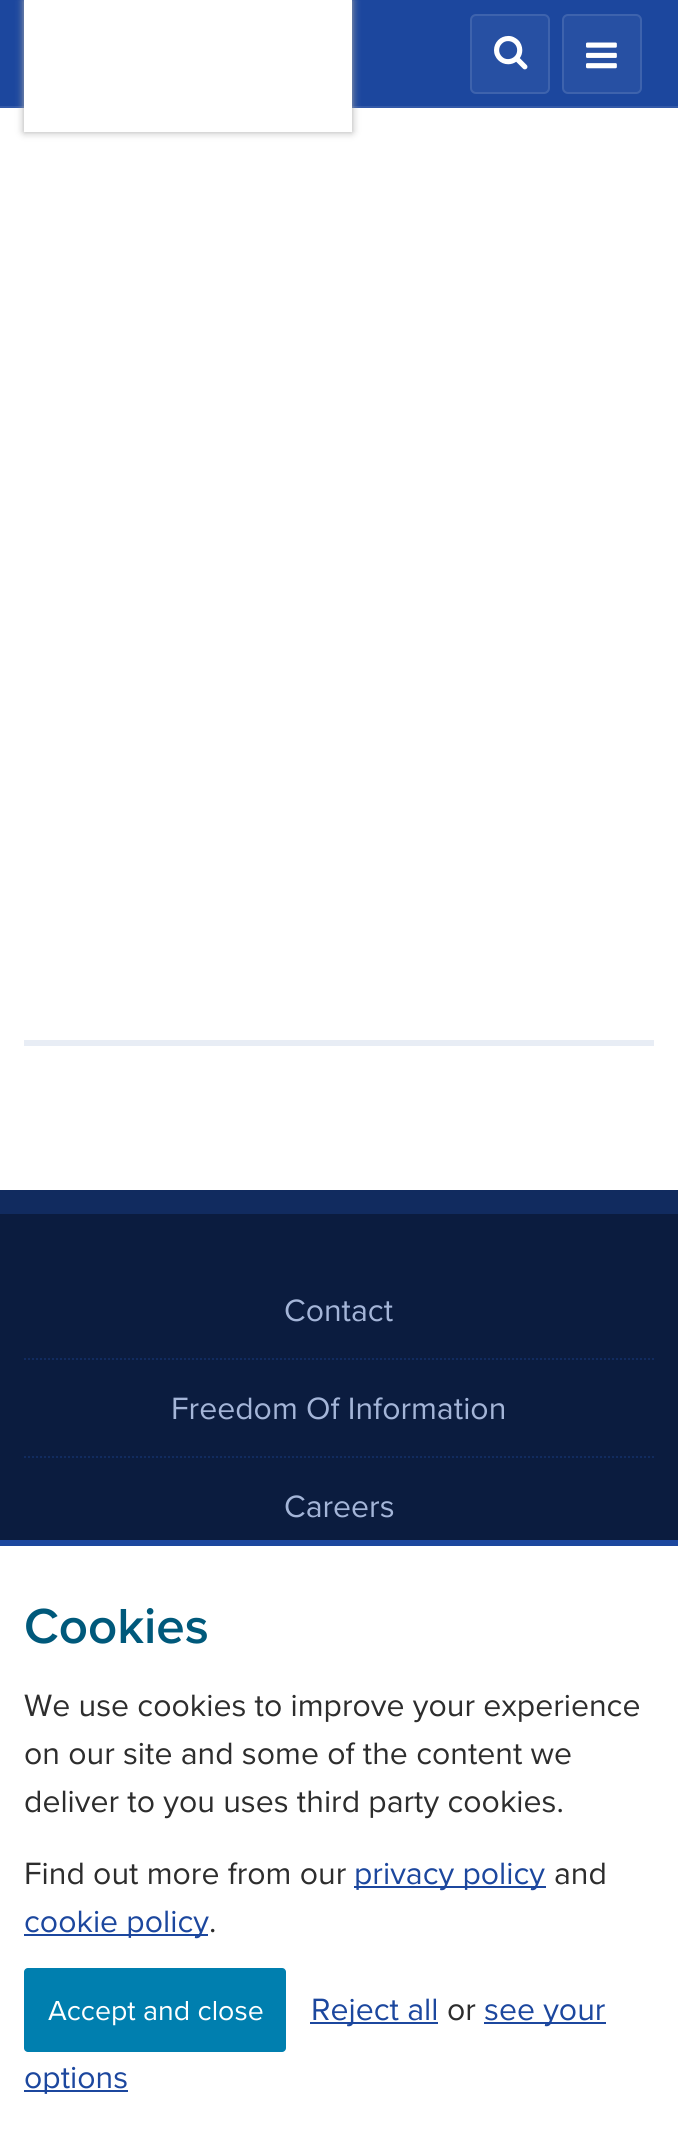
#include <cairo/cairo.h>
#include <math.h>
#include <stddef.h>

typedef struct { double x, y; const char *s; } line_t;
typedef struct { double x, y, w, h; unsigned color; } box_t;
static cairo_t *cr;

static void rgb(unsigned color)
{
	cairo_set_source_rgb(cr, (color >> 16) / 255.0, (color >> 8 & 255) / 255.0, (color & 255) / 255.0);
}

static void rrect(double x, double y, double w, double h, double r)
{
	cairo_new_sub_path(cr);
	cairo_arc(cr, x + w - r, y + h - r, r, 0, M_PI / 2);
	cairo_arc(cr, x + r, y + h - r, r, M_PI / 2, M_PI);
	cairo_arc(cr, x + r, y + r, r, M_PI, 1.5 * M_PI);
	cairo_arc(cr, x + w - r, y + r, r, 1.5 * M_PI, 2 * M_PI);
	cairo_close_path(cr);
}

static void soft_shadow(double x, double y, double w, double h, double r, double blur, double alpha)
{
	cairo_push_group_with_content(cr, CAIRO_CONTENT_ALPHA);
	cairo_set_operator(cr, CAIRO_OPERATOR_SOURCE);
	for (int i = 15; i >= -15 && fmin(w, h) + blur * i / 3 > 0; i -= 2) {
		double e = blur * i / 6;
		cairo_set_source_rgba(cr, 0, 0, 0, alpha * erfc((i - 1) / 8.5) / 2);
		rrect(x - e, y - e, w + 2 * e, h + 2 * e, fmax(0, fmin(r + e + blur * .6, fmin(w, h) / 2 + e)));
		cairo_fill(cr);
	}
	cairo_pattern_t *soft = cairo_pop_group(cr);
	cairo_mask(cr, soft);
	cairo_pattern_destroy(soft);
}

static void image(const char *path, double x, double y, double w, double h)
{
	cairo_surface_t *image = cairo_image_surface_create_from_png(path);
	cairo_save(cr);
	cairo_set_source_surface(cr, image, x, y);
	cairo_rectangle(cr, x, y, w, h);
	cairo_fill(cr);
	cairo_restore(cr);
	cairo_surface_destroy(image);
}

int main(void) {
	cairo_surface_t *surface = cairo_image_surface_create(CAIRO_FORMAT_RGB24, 678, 2147);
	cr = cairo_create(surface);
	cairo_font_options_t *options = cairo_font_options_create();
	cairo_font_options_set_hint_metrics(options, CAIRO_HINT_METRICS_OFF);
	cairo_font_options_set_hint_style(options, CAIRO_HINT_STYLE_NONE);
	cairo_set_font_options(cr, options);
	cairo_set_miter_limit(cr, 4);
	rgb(0xffffff);
	cairo_paint(cr);
	rgb(0x1c479e);
	cairo_rectangle(cr, 0, 0, 678, 106);
	cairo_fill(cr);
	rgb(0x3359a8);
	cairo_rectangle(cr, 0, 106, 678, 2);
	cairo_fill(cr);
	rgb(0xaaaaaa);
	soft_shadow(24, 0, 328, 132, 0, 4, 1);
	rgb(0xffffff);
	cairo_rectangle(cr, 24, 0, 328, 132);
	cairo_fill(cr);
	rgb(0x2750a3);
	rrect(471, 15, 78, 78, 5);
	cairo_fill_preserve(cr);
	rgb(0x3e63ad);
	cairo_stroke(cr);
	image("img/1.png", 494, 35, 34, 35);
	rgb(0x2750a3);
	rrect(563, 15, 78, 78, 5);
	cairo_fill_preserve(cr);
	rgb(0x3e63ad);
	cairo_stroke(cr);
	image("img/2.png", 586, 42, 31, 27);
	{
		static const box_t items[] = {
			{24, 1040, 630, 6, 0xe8edf5},
			{0, 1214, 678, 326, 0x0b1c3f},
			{0, 1190, 678, 24, 0x112b5f},
		};
		for (size_t i = 0; i < sizeof items / sizeof *items; i++) {
			rgb(items[i].color);
			cairo_rectangle(cr, items[i].x, items[i].y, items[i].w, items[i].h);
			cairo_fill(cr);
		}
	}
	cairo_new_path(cr);
	cairo_move_to(cr, 24, 1359);
	cairo_line_to(cr, 654, 1359);
	cairo_set_dash(cr, (double[]){2, 2}, 2, 0);
	cairo_stroke(cr);
	cairo_new_path(cr);
	cairo_move_to(cr, 24, 1457);
	cairo_line_to(cr, 654, 1457);
	cairo_stroke(cr);
	{
		static const box_t items[] = {
			{0, 1540, 678, 6, 0x1c479e},
			{354, 1886, 192, 2, 0x1c479e},
			{24, 1934, 184, 2, 0x1c479e},
		};
		for (size_t i = 0; i < sizeof items / sizeof *items; i++) {
			rgb(items[i].color);
			cairo_rectangle(cr, items[i].x, items[i].y, items[i].w, items[i].h);
			cairo_fill(cr);
		}
	}
	rgb(0x007faf);
	rrect(24, 1968, 262, 84, 4);
	cairo_fill(cr);
	{
		static const box_t items[] = {
			{310, 2022, 128, 2, 0x1c479e},
			{484, 2022, 122, 2, 0x1c479e},
			{24, 2090, 104, 2, 0x1c479e},
		};
		for (size_t i = 0; i < sizeof items / sizeof *items; i++) {
			rgb(items[i].color);
			cairo_rectangle(cr, items[i].x, items[i].y, items[i].w, items[i].h);
			cairo_fill(cr);
		}
	}
	cairo_select_font_face(cr, "Proxima Nova", CAIRO_FONT_SLANT_NORMAL, CAIRO_FONT_WEIGHT_NORMAL);
	cairo_set_font_size(cr, 32);
	rgb(0xa4b5d8);
	{
		static const line_t items[] = {
			{284, 1321, "Contact"},
			{171, 1419, "Freedom Of Information"},
			{284, 1517, "Careers"},
		};
		for (size_t i = 0; i < sizeof items / sizeof *items; i++) {
			cairo_move_to(cr, items[i].x, items[i].y);
			cairo_show_text(cr, items[i].s);
		}
	}
	cairo_select_font_face(cr, "Proxima Nova SemiBold", CAIRO_FONT_SLANT_NORMAL, CAIRO_FONT_WEIGHT_NORMAL);
	cairo_set_font_size(cr, 51);
	rgb(0x00597b);
	cairo_move_to(cr, 24, 1643);
	cairo_show_text(cr, "Cookies");
	cairo_select_font_face(cr, "Proxima Nova", CAIRO_FONT_SLANT_NORMAL, CAIRO_FONT_WEIGHT_NORMAL);
	cairo_set_font_size(cr, 32);
	rgb(0x2d2d2d);
	{
		static const line_t items[] = {
			{24, 1716, "We use cookies to improve your experience"},
			{24, 1764, "on our site and some of the content we"},
			{24, 1812, "deliver to you uses third party cookies."},
			{24, 1884, "Find out more from our"},
		};
		for (size_t i = 0; i < sizeof items / sizeof *items; i++) {
			cairo_move_to(cr, items[i].x, items[i].y);
			cairo_show_text(cr, items[i].s);
		}
	}
	rgb(0x1c479e);
	cairo_move_to(cr, 354, 1884);
	cairo_show_text(cr, "privacy policy");
	rgb(0x2d2d2d);
	cairo_move_to(cr, 554, 1884);
	cairo_show_text(cr, "and");
	rgb(0x1c479e);
	cairo_move_to(cr, 24, 1932);
	cairo_show_text(cr, "cookie policy");
	rgb(0x2d2d2d);
	cairo_move_to(cr, 209, 1932);
	cairo_show_text(cr, ".");
	cairo_set_font_size(cr, 28.5);
	rgb(0xffffff);
	cairo_move_to(cr, 48, 2020);
	cairo_show_text(cr, "Accept and close");
	cairo_set_font_size(cr, 32);
	rgb(0x1c479e);
	cairo_move_to(cr, 311, 2020);
	cairo_show_text(cr, "Reject all");
	rgb(0x2d2d2d);
	cairo_move_to(cr, 447, 2020);
	cairo_show_text(cr, "or");
	rgb(0x1c479e);
	cairo_move_to(cr, 484, 2020);
	cairo_show_text(cr, "see your");
	cairo_move_to(cr, 24, 2088);
	cairo_show_text(cr, "options");
	cairo_surface_write_to_png(surface, "page.png");
	cairo_font_options_destroy(options);
	cairo_destroy(cr);
	cairo_surface_destroy(surface);
	return 0;
}
